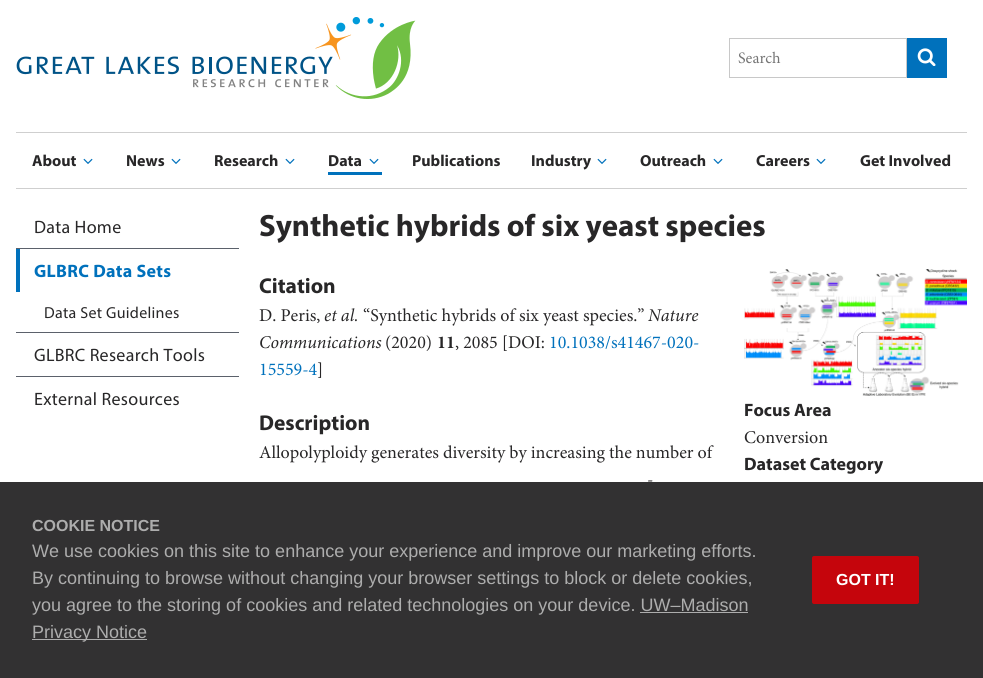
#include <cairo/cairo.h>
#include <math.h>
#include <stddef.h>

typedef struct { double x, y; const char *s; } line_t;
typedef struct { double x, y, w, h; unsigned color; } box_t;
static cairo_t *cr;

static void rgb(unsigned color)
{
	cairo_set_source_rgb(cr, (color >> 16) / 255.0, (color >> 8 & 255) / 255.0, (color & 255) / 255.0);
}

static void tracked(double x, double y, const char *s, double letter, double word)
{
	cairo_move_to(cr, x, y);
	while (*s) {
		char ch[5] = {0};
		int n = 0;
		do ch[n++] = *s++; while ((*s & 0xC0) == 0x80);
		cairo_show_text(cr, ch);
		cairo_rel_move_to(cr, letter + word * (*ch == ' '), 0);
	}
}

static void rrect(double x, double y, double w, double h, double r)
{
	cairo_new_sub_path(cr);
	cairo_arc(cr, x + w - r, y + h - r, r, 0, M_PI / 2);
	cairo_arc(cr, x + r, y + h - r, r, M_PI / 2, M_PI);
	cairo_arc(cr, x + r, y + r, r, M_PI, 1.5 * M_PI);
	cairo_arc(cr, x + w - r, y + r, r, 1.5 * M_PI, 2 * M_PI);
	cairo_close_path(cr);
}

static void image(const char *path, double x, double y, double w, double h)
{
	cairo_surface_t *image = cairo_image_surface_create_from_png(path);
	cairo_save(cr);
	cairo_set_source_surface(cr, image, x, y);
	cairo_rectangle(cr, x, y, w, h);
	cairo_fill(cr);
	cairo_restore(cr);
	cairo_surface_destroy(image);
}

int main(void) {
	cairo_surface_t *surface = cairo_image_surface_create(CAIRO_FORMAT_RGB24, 983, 678);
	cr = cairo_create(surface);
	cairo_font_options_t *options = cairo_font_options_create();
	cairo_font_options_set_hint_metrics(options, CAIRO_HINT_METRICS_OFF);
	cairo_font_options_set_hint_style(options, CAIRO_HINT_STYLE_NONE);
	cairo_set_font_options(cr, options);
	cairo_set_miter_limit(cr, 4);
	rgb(0xffffff);
	cairo_paint(cr);
	image("img/1.png", 16, 17, 400, 82);
	cairo_rectangle(cr, 729.5, 38.5, 177, 39);
	rgb(0xc8c8c8);
	cairo_set_line_width(cr, 1);
	cairo_stroke(cr);
	rgb(0x0071bc);
	cairo_rectangle(cr, 907, 38, 40, 40);
	cairo_fill(cr);
	image("img/2.png", 917, 48, 19, 18);
	rgb(0xcfcfcf);
	cairo_rectangle(cr, 16, 132, 951, 1);
	cairo_fill(cr);
	cairo_rectangle(cr, 16, 188, 951, 1);
	cairo_fill(cr);
	image("img/3.png", 83, 158, 10, 6);
	image("img/3.png", 171, 158, 10, 6);
	image("img/3.png", 285, 158, 10, 6);
	rgb(0x0071bc);
	cairo_rectangle(cr, 328, 172, 54, 3);
	cairo_fill(cr);
	image("img/3.png", 369, 158, 10, 6);
	image("img/3.png", 597, 158, 10, 6);
	image("img/3.png", 713, 158, 10, 6);
	image("img/3.png", 816, 158, 10, 6);
	{
		static const box_t items[] = {
			{16, 248, 223, 1, 0x5b616b},
			{16, 249, 4, 43, 0x0071bc},
			{16, 332, 223, 1, 0x5b616b},
			{16, 376, 223, 1, 0x5b616b},
		};
		for (size_t i = 0; i < sizeof items / sizeof *items; i++) {
			rgb(items[i].color);
			cairo_rectangle(cr, items[i].x, items[i].y, items[i].w, items[i].h);
			cairo_fill(cr);
		}
	}
	image("img/4.png", 744, 269, 223, 127);
	cairo_set_source_rgba(cr, 0.157, 0.153, 0.157, 0.95);
	cairo_rectangle(cr, 0, 482, 983, 196);
	cairo_fill(cr);
	rgb(0xadadad);
	cairo_rectangle(cr, 640, 612, 108, 1);
	cairo_fill(cr);
	cairo_rectangle(cr, 32, 639, 115, 1);
	cairo_fill(cr);
	rgb(0xc5050c);
	rrect(812, 556, 107, 48, 2);
	cairo_fill(cr);
	cairo_select_font_face(cr, "Minion", CAIRO_FONT_SLANT_NORMAL, CAIRO_FONT_WEIGHT_NORMAL);
	cairo_set_font_size(cr, 16);
	rgb(0x757575);
	cairo_move_to(cr, 738, 63);
	cairo_show_text(cr, "Search");
	cairo_select_font_face(cr, "Myriad", CAIRO_FONT_SLANT_NORMAL, CAIRO_FONT_WEIGHT_BOLD);
	rgb(0x282728);
	{
		static const line_t items[] = {
			{32, 166, "About"},
			{126, 166, "News"},
			{214, 166, "Research"},
			{328, 166, "Data"},
			{412, 166, "Publications"},
			{531, 166, "Industry"},
			{640, 166, "Outreach"},
			{756, 166, "Careers"},
			{860, 166, "Get Involved"},
		};
		for (size_t i = 0; i < sizeof items / sizeof *items; i++) {
			cairo_move_to(cr, items[i].x, items[i].y);
			cairo_show_text(cr, items[i].s);
		}
	}
	cairo_select_font_face(cr, "Myriad", CAIRO_FONT_SLANT_NORMAL, CAIRO_FONT_WEIGHT_NORMAL);
	cairo_set_font_size(cr, 18);
	tracked(34, 233, "Data Home", 0.3, 0);
	cairo_select_font_face(cr, "Myriad", CAIRO_FONT_SLANT_NORMAL, CAIRO_FONT_WEIGHT_BOLD);
	rgb(0x0071bc);
	tracked(34, 277, "GLBRC Data Sets", 0.3, 0);
	cairo_select_font_face(cr, "Myriad", CAIRO_FONT_SLANT_NORMAL, CAIRO_FONT_WEIGHT_NORMAL);
	cairo_set_font_size(cr, 16);
	rgb(0x282728);
	tracked(44, 318, "Data Set Guidelines", 0.3, 0);
	cairo_set_font_size(cr, 18);
	tracked(34, 361, "GLBRC Research Tools", 0.3, 0);
	tracked(34, 405, "External Resources", 0.3, 0);
	cairo_select_font_face(cr, "Myriad", CAIRO_FONT_SLANT_NORMAL, CAIRO_FONT_WEIGHT_BOLD);
	cairo_set_font_size(cr, 30.9);
	cairo_move_to(cr, 259, 236);
	cairo_show_text(cr, "Synthetic hybrids of six yeast species");
	cairo_set_font_size(cr, 21.5);
	cairo_move_to(cr, 259, 293);
	cairo_show_text(cr, "Citation");
	cairo_select_font_face(cr, "Minion", CAIRO_FONT_SLANT_NORMAL, CAIRO_FONT_WEIGHT_NORMAL);
	cairo_set_font_size(cr, 18);
	cairo_move_to(cr, 259, 321);
	cairo_show_text(cr, "D. Peris,");
	cairo_select_font_face(cr, "Minion", CAIRO_FONT_SLANT_ITALIC, CAIRO_FONT_WEIGHT_NORMAL);
	cairo_move_to(cr, 324, 321);
	cairo_show_text(cr, "et al.");
	cairo_select_font_face(cr, "Minion", CAIRO_FONT_SLANT_NORMAL, CAIRO_FONT_WEIGHT_NORMAL);
	cairo_move_to(cr, 363, 321);
	cairo_show_text(cr, "“Synthetic hybrids of six yeast species.”");
	cairo_select_font_face(cr, "Minion", CAIRO_FONT_SLANT_ITALIC, CAIRO_FONT_WEIGHT_NORMAL);
	cairo_move_to(cr, 648, 321);
	cairo_show_text(cr, "Nature");
	cairo_move_to(cr, 259, 348);
	cairo_show_text(cr, "Communications");
	cairo_select_font_face(cr, "Minion", CAIRO_FONT_SLANT_NORMAL, CAIRO_FONT_WEIGHT_NORMAL);
	cairo_move_to(cr, 385, 348);
	cairo_show_text(cr, "(2020)");
	cairo_select_font_face(cr, "Minion", CAIRO_FONT_SLANT_NORMAL, CAIRO_FONT_WEIGHT_BOLD);
	cairo_move_to(cr, 437, 348);
	cairo_show_text(cr, "11");
	cairo_select_font_face(cr, "Minion", CAIRO_FONT_SLANT_NORMAL, CAIRO_FONT_WEIGHT_NORMAL);
	cairo_move_to(cr, 455, 348);
	cairo_show_text(cr, ", 2085 [DOI:");
	rgb(0x0071bc);
	cairo_move_to(cr, 549, 348);
	cairo_show_text(cr, "10.1038/s41467-020-");
	cairo_move_to(cr, 259, 375);
	cairo_show_text(cr, "15559-4");
	rgb(0x282728);
	cairo_move_to(cr, 317, 375);
	cairo_show_text(cr, "]");
	cairo_select_font_face(cr, "Myriad", CAIRO_FONT_SLANT_NORMAL, CAIRO_FONT_WEIGHT_BOLD);
	cairo_set_font_size(cr, 21.5);
	cairo_move_to(cr, 259, 430);
	cairo_show_text(cr, "Description");
	cairo_select_font_face(cr, "Minion", CAIRO_FONT_SLANT_NORMAL, CAIRO_FONT_WEIGHT_NORMAL);
	cairo_set_font_size(cr, 18);
	cairo_move_to(cr, 259, 458);
	cairo_show_text(cr, "Allopolyploidy generates diversity by increasing the number of");
	cairo_move_to(cr, 647, 485);
	cairo_show_text(cr, "-");
	cairo_select_font_face(cr, "Myriad", CAIRO_FONT_SLANT_NORMAL, CAIRO_FONT_WEIGHT_BOLD);
	cairo_move_to(cr, 744, 416);
	cairo_show_text(cr, "Focus Area");
	cairo_select_font_face(cr, "Minion", CAIRO_FONT_SLANT_NORMAL, CAIRO_FONT_WEIGHT_NORMAL);
	cairo_move_to(cr, 744, 443);
	cairo_show_text(cr, "Conversion");
	cairo_select_font_face(cr, "Myriad", CAIRO_FONT_SLANT_NORMAL, CAIRO_FONT_WEIGHT_BOLD);
	cairo_move_to(cr, 744, 470);
	cairo_show_text(cr, "Dataset Category");
	cairo_select_font_face(cr, "Liberation Sans", CAIRO_FONT_SLANT_NORMAL, CAIRO_FONT_WEIGHT_BOLD);
	cairo_set_font_size(cr, 16);
	rgb(0xadadad);
	cairo_move_to(cr, 32, 531);
	cairo_show_text(cr, "COOKIE NOTICE");
	cairo_select_font_face(cr, "Liberation Sans", CAIRO_FONT_SLANT_NORMAL, CAIRO_FONT_WEIGHT_NORMAL);
	cairo_set_font_size(cr, 18);
	{
		static const line_t items[] = {
			{32, 557, "We use cookies on this site to enhance your experience and improve our marketing efforts."},
			{32, 584, "By continuing to browse without changing your browser settings to block or delete cookies,"},
			{32, 611, "you agree to the storing of cookies and related technologies on your device. UW–Madison"},
			{32, 638, "Privacy Notice"},
		};
		for (size_t i = 0; i < sizeof items / sizeof *items; i++) {
			cairo_move_to(cr, items[i].x, items[i].y);
			cairo_show_text(cr, items[i].s);
		}
	}
	cairo_select_font_face(cr, "Liberation Sans", CAIRO_FONT_SLANT_NORMAL, CAIRO_FONT_WEIGHT_BOLD);
	cairo_set_font_size(cr, 16);
	rgb(0xffffff);
	cairo_move_to(cr, 836, 585);
	cairo_show_text(cr, "GOT IT!");
	cairo_surface_write_to_png(surface, "page.png");
	cairo_font_options_destroy(options);
	cairo_destroy(cr);
	cairo_surface_destroy(surface);
	return 0;
}
